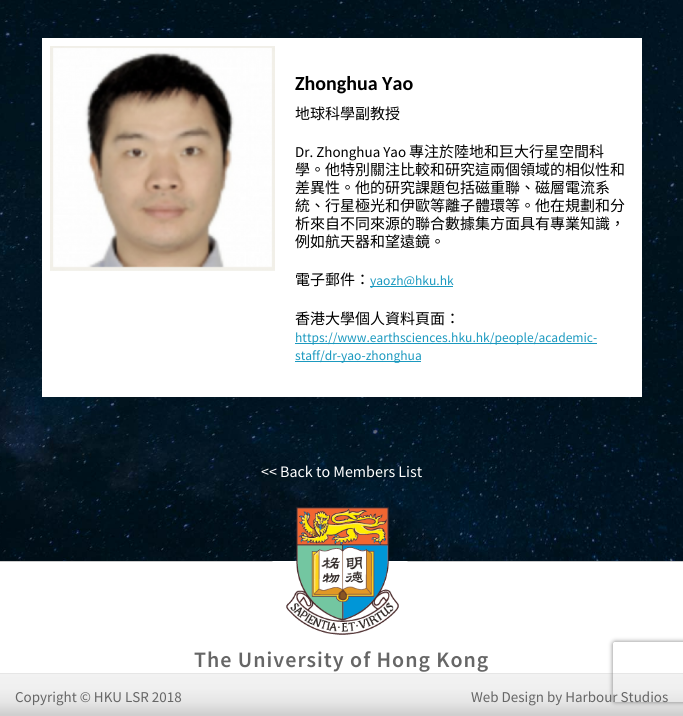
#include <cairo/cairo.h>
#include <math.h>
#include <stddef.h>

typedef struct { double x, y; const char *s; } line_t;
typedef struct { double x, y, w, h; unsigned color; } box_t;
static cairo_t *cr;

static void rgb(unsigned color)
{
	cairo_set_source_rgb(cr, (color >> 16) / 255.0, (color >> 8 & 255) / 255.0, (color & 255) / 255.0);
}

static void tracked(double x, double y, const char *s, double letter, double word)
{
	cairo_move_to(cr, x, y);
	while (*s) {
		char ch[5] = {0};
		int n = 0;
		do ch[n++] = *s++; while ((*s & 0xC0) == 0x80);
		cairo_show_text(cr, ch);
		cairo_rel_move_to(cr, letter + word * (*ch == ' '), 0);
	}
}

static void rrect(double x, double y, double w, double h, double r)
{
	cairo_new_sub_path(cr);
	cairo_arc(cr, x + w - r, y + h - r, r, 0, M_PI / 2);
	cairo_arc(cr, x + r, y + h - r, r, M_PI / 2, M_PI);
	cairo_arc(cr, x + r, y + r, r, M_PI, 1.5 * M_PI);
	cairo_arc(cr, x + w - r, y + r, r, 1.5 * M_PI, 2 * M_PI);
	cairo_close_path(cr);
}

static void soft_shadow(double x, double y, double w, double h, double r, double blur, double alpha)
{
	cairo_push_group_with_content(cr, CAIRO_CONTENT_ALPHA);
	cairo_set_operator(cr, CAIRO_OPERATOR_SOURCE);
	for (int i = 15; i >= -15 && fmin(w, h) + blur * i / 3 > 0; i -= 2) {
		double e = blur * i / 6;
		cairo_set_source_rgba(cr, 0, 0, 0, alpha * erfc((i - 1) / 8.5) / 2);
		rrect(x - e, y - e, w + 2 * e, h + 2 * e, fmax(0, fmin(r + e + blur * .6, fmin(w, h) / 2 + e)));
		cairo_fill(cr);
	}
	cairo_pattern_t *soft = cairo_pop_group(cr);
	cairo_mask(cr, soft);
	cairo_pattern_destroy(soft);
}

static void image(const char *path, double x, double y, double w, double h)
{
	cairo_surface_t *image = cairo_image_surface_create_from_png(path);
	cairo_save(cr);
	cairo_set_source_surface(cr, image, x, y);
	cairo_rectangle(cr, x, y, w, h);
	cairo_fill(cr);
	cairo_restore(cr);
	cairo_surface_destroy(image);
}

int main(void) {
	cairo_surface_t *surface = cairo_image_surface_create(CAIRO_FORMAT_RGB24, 683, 716);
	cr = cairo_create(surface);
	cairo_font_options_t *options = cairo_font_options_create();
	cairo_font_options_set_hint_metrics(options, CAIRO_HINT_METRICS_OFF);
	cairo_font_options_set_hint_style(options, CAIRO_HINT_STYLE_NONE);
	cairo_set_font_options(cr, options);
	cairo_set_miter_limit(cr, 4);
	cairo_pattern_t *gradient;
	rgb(0xffffff);
	cairo_paint(cr);
	image("img/1.png", 0, 0, 683, 561);
	rgb(0xffffff);
	cairo_rectangle(cr, 42, 38, 600, 359);
	cairo_fill(cr);
	image("img/2.png", 50, 46, 225, 225);
	{
		static const box_t items[] = {
			{370, 286, 83, 1, 0x1b99bf},
			{295, 343, 302, 1, 0x1b99bf},
			{295, 361, 126, 1, 0x1b99bf},
		};
		for (size_t i = 0; i < sizeof items / sizeof *items; i++) {
			rgb(items[i].color);
			cairo_rectangle(cr, items[i].x, items[i].y, items[i].w, items[i].h);
			cairo_fill(cr);
		}
	}
	gradient = cairo_pattern_create_linear(342, 674, 342, 716);
	cairo_pattern_add_color_stop_rgba(gradient, 0, 0.949, 0.949, 0.949, 1);
	cairo_pattern_add_color_stop_rgba(gradient, 0.34, 0.941, 0.941, 0.941, 1);
	cairo_pattern_add_color_stop_rgba(gradient, 0.68, 0.898, 0.898, 0.898, 1);
	cairo_pattern_add_color_stop_rgba(gradient, 0.97, 0.812, 0.812, 0.812, 1);
	cairo_set_source(cr, gradient);
	cairo_pattern_destroy(gradient);
	cairo_rectangle(cr, 0, 674, 683, 42);
	cairo_fill(cr);
	rgb(0xe6e6e6);
	cairo_rectangle(cr, 0, 673, 683, 1);
	cairo_fill(cr);
	cairo_save(cr);
	cairo_set_fill_rule(cr, CAIRO_FILL_RULE_EVEN_ODD);
	cairo_new_path(cr);
	cairo_move_to(cr, 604, 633);
	cairo_line_to(cr, 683, 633);
	cairo_line_to(cr, 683, 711);
	cairo_line_to(cr, 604, 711);
	cairo_close_path(cr);
	cairo_move_to(cr, 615, 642);
	cairo_line_to(cr, 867, 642);
	cairo_curve_to(cr, 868, 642, 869, 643, 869, 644);
	cairo_line_to(cr, 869, 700);
	cairo_curve_to(cr, 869, 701, 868, 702, 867, 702);
	cairo_line_to(cr, 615, 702);
	cairo_curve_to(cr, 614, 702, 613, 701, 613, 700);
	cairo_line_to(cr, 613, 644);
	cairo_curve_to(cr, 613, 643, 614, 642, 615, 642);
	cairo_close_path(cr);
	cairo_clip(cr);
	rgb(0x808080);
	soft_shadow(613, 642, 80, 60, 2, 2.5, 1);
	cairo_restore(cr);
	image("img/3.png", 0, 561, 683, 1);
	image("img/4.png", 286, 507, 113, 128);
	cairo_select_font_face(cr, "Carlito", CAIRO_FONT_SLANT_NORMAL, CAIRO_FONT_WEIGHT_BOLD);
	cairo_set_font_size(cr, 20);
	rgb(0x000000);
	cairo_move_to(cr, 295, 90);
	cairo_show_text(cr, "Zhonghua Yao");
	cairo_select_font_face(cr, "Noto Sans CJK HK", CAIRO_FONT_SLANT_NORMAL, CAIRO_FONT_WEIGHT_NORMAL);
	cairo_set_font_size(cr, 15);
	cairo_move_to(cr, 295, 119);
	cairo_show_text(cr, "地球科學副教授");
	cairo_select_font_face(cr, "Source Sans Pro", CAIRO_FONT_SLANT_NORMAL, CAIRO_FONT_WEIGHT_NORMAL);
	cairo_move_to(cr, 295, 157);
	cairo_show_text(cr, "Dr. Zhonghua Yao");
	cairo_select_font_face(cr, "Noto Sans CJK HK", CAIRO_FONT_SLANT_NORMAL, CAIRO_FONT_WEIGHT_NORMAL);
	{
		static const line_t items[] = {
			{409, 157, "專注於陸地和巨大行星空間科"},
			{295, 175, "學。他特別關注比較和研究這兩個領域的相似性和"},
			{295, 193, "差異性。他的研究課題包括磁重聯、磁層電流系"},
			{295, 211, "統、行星極光和伊歐等離子體環等。他在規劃和分"},
			{295, 229, "析來自不同來源的聯合數據集方面具有專業知識，"},
			{295, 247, "例如航天器和望遠鏡。"},
			{295, 285, "電子郵件："},
		};
		for (size_t i = 0; i < sizeof items / sizeof *items; i++) {
			cairo_move_to(cr, items[i].x, items[i].y);
			cairo_show_text(cr, items[i].s);
		}
	}
	cairo_select_font_face(cr, "Source Sans Pro", CAIRO_FONT_SLANT_NORMAL, CAIRO_FONT_WEIGHT_NORMAL);
	cairo_set_font_size(cr, 13.5);
	rgb(0x1b99bf);
	cairo_move_to(cr, 370, 285);
	cairo_show_text(cr, "yaozh@hku.hk");
	cairo_select_font_face(cr, "Noto Sans CJK HK", CAIRO_FONT_SLANT_NORMAL, CAIRO_FONT_WEIGHT_NORMAL);
	cairo_set_font_size(cr, 15);
	rgb(0x000000);
	cairo_move_to(cr, 295, 324);
	cairo_show_text(cr, "香港大學個人資料頁面：");
	cairo_select_font_face(cr, "Source Sans Pro", CAIRO_FONT_SLANT_NORMAL, CAIRO_FONT_WEIGHT_NORMAL);
	cairo_set_font_size(cr, 13.5);
	rgb(0x1b99bf);
	cairo_move_to(cr, 295, 342);
	cairo_show_text(cr, "https://www.earthsciences.hku.hk/people/academic-");
	cairo_move_to(cr, 295, 360);
	cairo_show_text(cr, "staff/dr-yao-zhonghua");
	cairo_set_font_size(cr, 16);
	rgb(0xffffff);
	cairo_move_to(cr, 261, 477);
	cairo_show_text(cr, "<< Back to Members List");
	cairo_select_font_face(cr, "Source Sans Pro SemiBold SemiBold", CAIRO_FONT_SLANT_NORMAL, CAIRO_FONT_WEIGHT_NORMAL);
	cairo_set_font_size(cr, 22);
	rgb(0x666666);
	tracked(194, 667, "The University of Hong Kong", 1, 0);
	cairo_select_font_face(cr, "Source Sans Pro", CAIRO_FONT_SLANT_NORMAL, CAIRO_FONT_WEIGHT_NORMAL);
	cairo_set_font_size(cr, 15);
	cairo_move_to(cr, 15, 702);
	cairo_show_text(cr, "Copyright © HKU LSR 2018");
	cairo_move_to(cr, 471, 702);
	cairo_show_text(cr, "Web Design by Harbour Studios");
	cairo_surface_write_to_png(surface, "page.png");
	cairo_font_options_destroy(options);
	cairo_destroy(cr);
	cairo_surface_destroy(surface);
	return 0;
}
